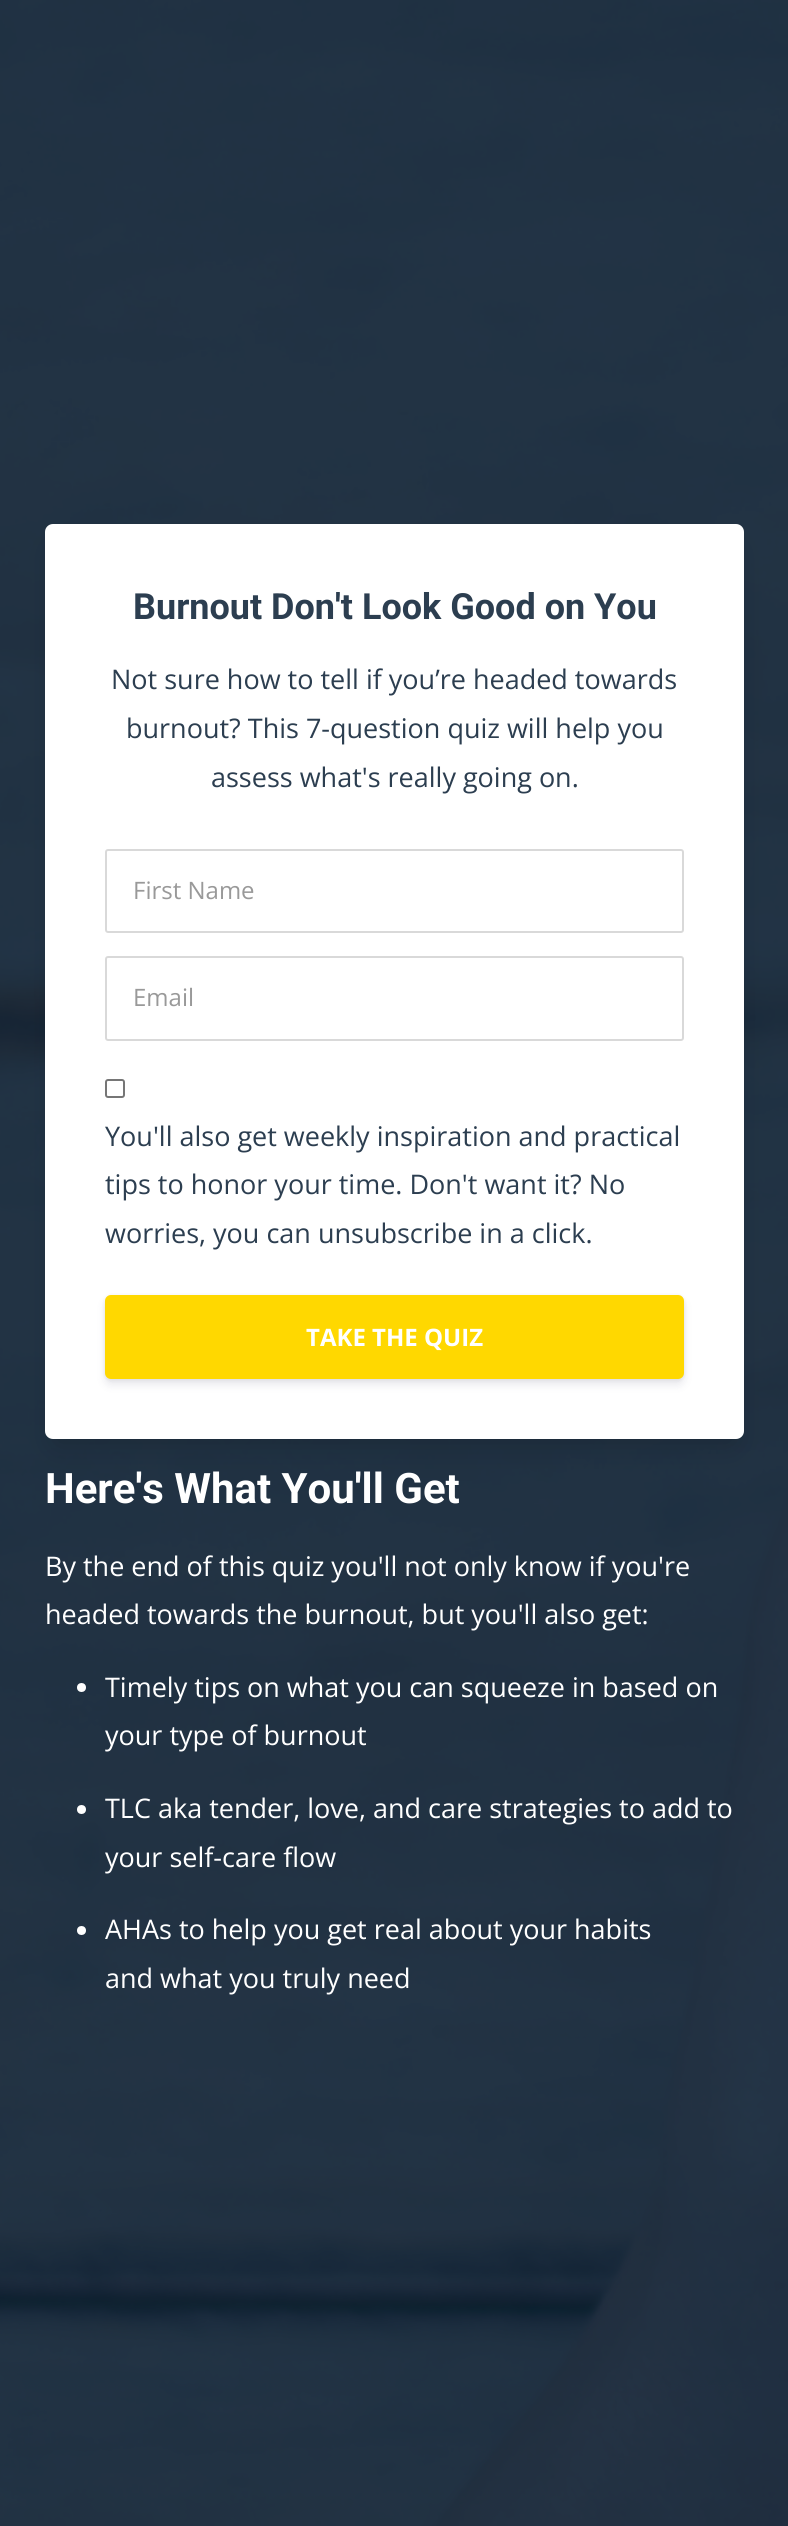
#include <cairo/cairo.h>
#include <math.h>
#include <stddef.h>

typedef struct { double x, y; const char *s; } line_t;
static cairo_t *cr;

static void rgb(unsigned color)
{
	cairo_set_source_rgb(cr, (color >> 16) / 255.0, (color >> 8 & 255) / 255.0, (color & 255) / 255.0);
}

static void rrect(double x, double y, double w, double h, double r)
{
	cairo_new_sub_path(cr);
	cairo_arc(cr, x + w - r, y + h - r, r, 0, M_PI / 2);
	cairo_arc(cr, x + r, y + h - r, r, M_PI / 2, M_PI);
	cairo_arc(cr, x + r, y + r, r, M_PI, 1.5 * M_PI);
	cairo_arc(cr, x + w - r, y + r, r, 1.5 * M_PI, 2 * M_PI);
	cairo_close_path(cr);
}

static void soft_shadow(double x, double y, double w, double h, double r, double blur, double alpha)
{
	cairo_push_group_with_content(cr, CAIRO_CONTENT_ALPHA);
	cairo_set_operator(cr, CAIRO_OPERATOR_SOURCE);
	for (int i = 15; i >= -15 && fmin(w, h) + blur * i / 3 > 0; i -= 2) {
		double e = blur * i / 6;
		cairo_set_source_rgba(cr, 0, 0, 0, alpha * erfc((i - 1) / 8.5) / 2);
		rrect(x - e, y - e, w + 2 * e, h + 2 * e, fmax(0, fmin(r + e + blur * .6, fmin(w, h) / 2 + e)));
		cairo_fill(cr);
	}
	cairo_pattern_t *soft = cairo_pop_group(cr);
	cairo_mask(cr, soft);
	cairo_pattern_destroy(soft);
}

static void image(const char *path, double x, double y, double w, double h)
{
	cairo_surface_t *image = cairo_image_surface_create_from_png(path);
	cairo_save(cr);
	cairo_set_source_surface(cr, image, x, y);
	cairo_rectangle(cr, x, y, w, h);
	cairo_fill(cr);
	cairo_restore(cr);
	cairo_surface_destroy(image);
}

int main(void) {
	cairo_surface_t *surface = cairo_image_surface_create(CAIRO_FORMAT_RGB24, 788, 2526);
	cr = cairo_create(surface);
	cairo_font_options_t *options = cairo_font_options_create();
	cairo_font_options_set_hint_metrics(options, CAIRO_HINT_METRICS_OFF);
	cairo_font_options_set_hint_style(options, CAIRO_HINT_STYLE_NONE);
	cairo_set_font_options(cr, options);
	cairo_set_miter_limit(cr, 4);
	rgb(0xffffff);
	cairo_paint(cr);
	image("img/1.png", 0, 0, 788, 2526);
	rgb(0x000000);
	soft_shadow(57, 551, 675, 891, 0, 15, 0.2);
	rgb(0xffffff);
	rrect(45, 524, 699, 915, 8);
	cairo_fill(cr);
	rrect(106, 850, 577, 82, 2);
	rgb(0xd9d9d9);
	cairo_stroke(cr);
	rrect(106, 957, 577, 83, 2);
	cairo_stroke(cr);
	rrect(106, 1080, 18, 17, 2);
	rgb(0x767676);
	cairo_stroke(cr);
	rgb(0x000000);
	soft_shadow(105, 1296, 579, 84, 6, 2, 0.08);
	rgb(0x32325d);
	soft_shadow(105, 1301, 579, 84, 6, 4.5, 0.11);
	rgb(0xffd800);
	rrect(106.5, 1296.5, 576, 81, 4.5);
	cairo_fill_preserve(cr);
	cairo_set_line_width(cr, 3);
	cairo_stroke(cr);
	rgb(0xffffff);
	cairo_arc(cr, 81.5, 1687.5, 4.5, 0, 2 * M_PI);
	cairo_fill(cr);
	cairo_arc(cr, 81.5, 1809.5, 4.5, 0, 2 * M_PI);
	cairo_fill(cr);
	cairo_arc(cr, 81.5, 1930.5, 4.5, 0, 2 * M_PI);
	cairo_fill(cr);
	cairo_select_font_face(cr, "Roboto", CAIRO_FONT_SLANT_NORMAL, CAIRO_FONT_WEIGHT_BOLD);
	cairo_set_font_size(cr, 36);
	rgb(0x2c3e50);
	cairo_move_to(cr, 133, 619);
	cairo_show_text(cr, "Burnout Don't Look Good on You");
	cairo_select_font_face(cr, "Open Sans", CAIRO_FONT_SLANT_NORMAL, CAIRO_FONT_WEIGHT_NORMAL);
	cairo_set_font_size(cr, 27);
	{
		static const line_t items[] = {
			{111, 689, "Not sure how to tell if you’re headed towards"},
			{126, 738, "burnout? This 7-question quiz will help you"},
			{211, 787, "assess what's really going on."},
		};
		for (size_t i = 0; i < sizeof items / sizeof *items; i++) {
			cairo_move_to(cr, items[i].x, items[i].y);
			cairo_show_text(cr, items[i].s);
		}
	}
	cairo_set_font_size(cr, 24);
	rgb(0x999999);
	cairo_move_to(cr, 133, 899);
	cairo_show_text(cr, "First Name");
	cairo_move_to(cr, 133, 1006);
	cairo_show_text(cr, "Email");
	cairo_set_font_size(cr, 27);
	rgb(0x2c3e50);
	{
		static const line_t items[] = {
			{105, 1146, "You'll also get weekly inspiration and practical"},
			{105, 1194, "tips to honor your time. Don't want it? No"},
			{105, 1243, "worries, you can unsubscribe in a click."},
		};
		for (size_t i = 0; i < sizeof items / sizeof *items; i++) {
			cairo_move_to(cr, items[i].x, items[i].y);
			cairo_show_text(cr, items[i].s);
		}
	}
	cairo_select_font_face(cr, "Open Sans", CAIRO_FONT_SLANT_NORMAL, CAIRO_FONT_WEIGHT_BOLD);
	cairo_set_font_size(cr, 24);
	rgb(0xffffff);
	cairo_move_to(cr, 306, 1346);
	cairo_show_text(cr, "TAKE THE QUIZ");
	cairo_select_font_face(cr, "Roboto", CAIRO_FONT_SLANT_NORMAL, CAIRO_FONT_WEIGHT_BOLD);
	cairo_set_font_size(cr, 42);
	cairo_move_to(cr, 45, 1503);
	cairo_show_text(cr, "Here's What You'll Get");
	cairo_select_font_face(cr, "Open Sans", CAIRO_FONT_SLANT_NORMAL, CAIRO_FONT_WEIGHT_NORMAL);
	cairo_set_font_size(cr, 27);
	{
		static const line_t items[] = {
			{45, 1576, "By the end of this quiz you'll not only know if you're"},
			{45, 1624, "headed towards the burnout, but you'll also get:"},
			{105, 1697, "Timely tips on what you can squeeze in based on"},
			{105, 1745, "your type of burnout"},
			{105, 1818, "TLC aka tender, love, and care strategies to add to"},
			{105, 1867, "your self-care flow"},
			{105, 1939, "AHAs to help you get real about your habits"},
			{105, 1988, "and what you truly need"},
		};
		for (size_t i = 0; i < sizeof items / sizeof *items; i++) {
			cairo_move_to(cr, items[i].x, items[i].y);
			cairo_show_text(cr, items[i].s);
		}
	}
	cairo_surface_write_to_png(surface, "page.png");
	cairo_font_options_destroy(options);
	cairo_destroy(cr);
	cairo_surface_destroy(surface);
	return 0;
}
